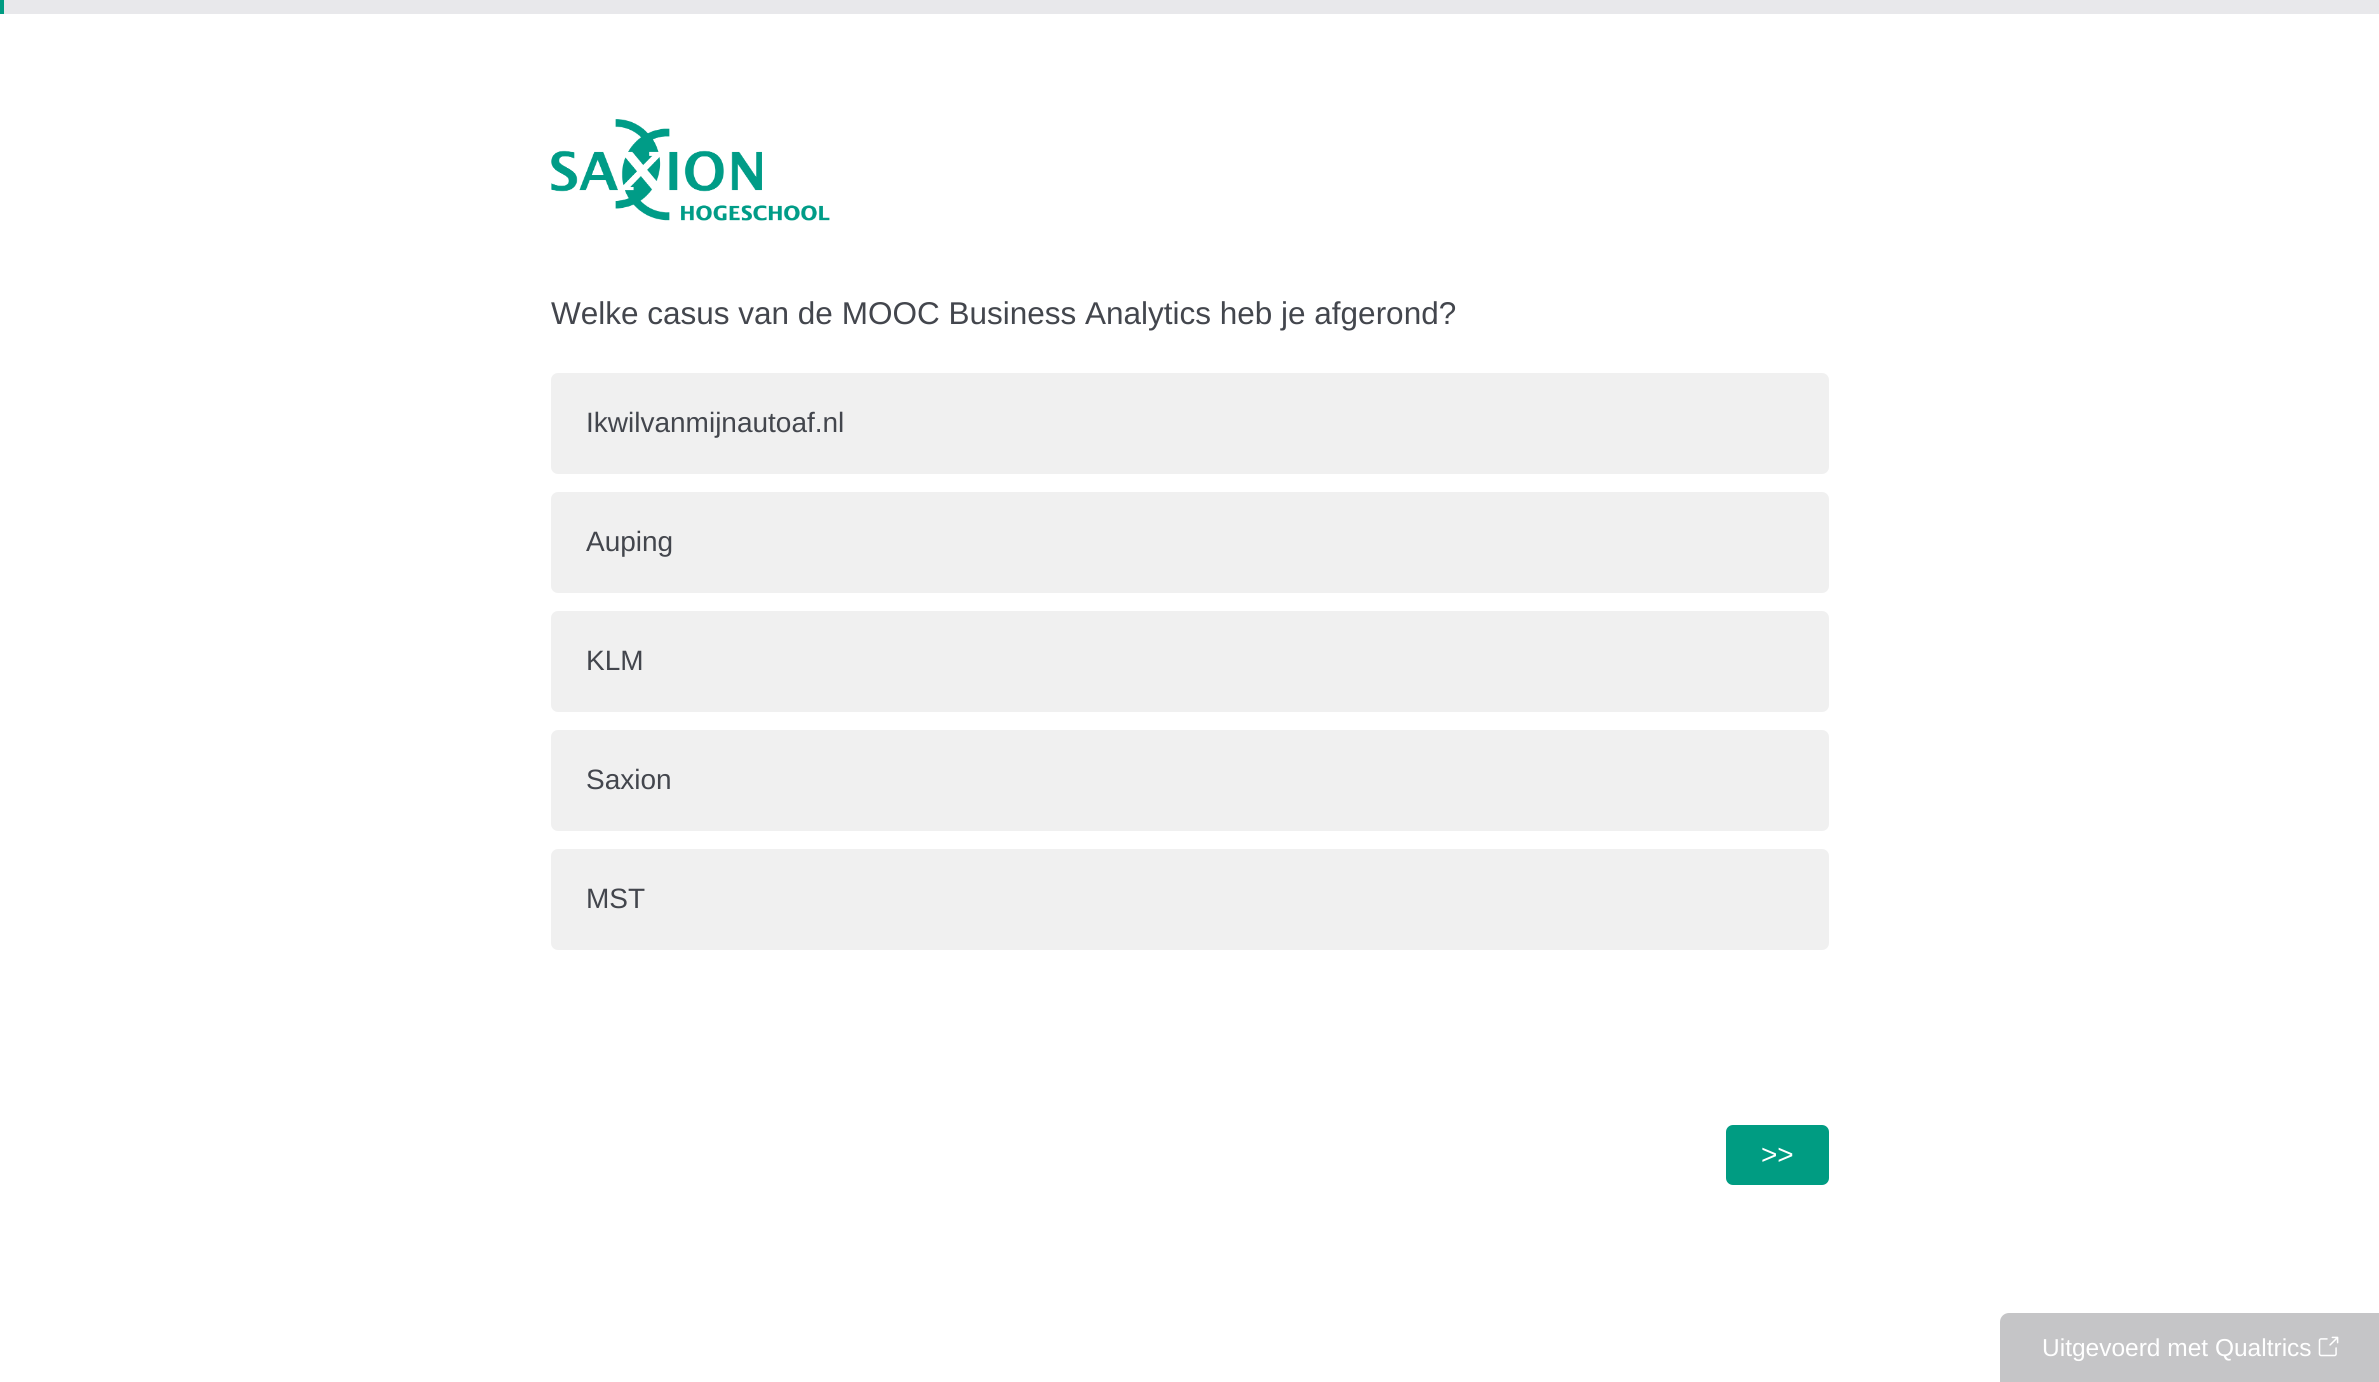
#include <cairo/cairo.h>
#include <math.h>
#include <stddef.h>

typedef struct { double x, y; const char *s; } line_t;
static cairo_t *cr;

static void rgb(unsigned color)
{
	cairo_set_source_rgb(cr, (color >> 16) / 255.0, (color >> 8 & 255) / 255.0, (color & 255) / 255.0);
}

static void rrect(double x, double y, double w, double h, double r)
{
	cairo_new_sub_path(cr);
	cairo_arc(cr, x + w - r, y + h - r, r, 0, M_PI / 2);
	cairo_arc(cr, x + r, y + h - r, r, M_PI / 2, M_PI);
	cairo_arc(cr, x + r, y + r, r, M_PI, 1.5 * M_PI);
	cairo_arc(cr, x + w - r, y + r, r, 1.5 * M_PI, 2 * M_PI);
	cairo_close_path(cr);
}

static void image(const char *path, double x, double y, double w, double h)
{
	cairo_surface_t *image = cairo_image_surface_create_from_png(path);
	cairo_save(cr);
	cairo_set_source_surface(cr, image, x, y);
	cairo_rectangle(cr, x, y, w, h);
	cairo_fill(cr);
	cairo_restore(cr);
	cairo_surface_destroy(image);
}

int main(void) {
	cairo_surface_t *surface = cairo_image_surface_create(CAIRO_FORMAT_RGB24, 2379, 1382);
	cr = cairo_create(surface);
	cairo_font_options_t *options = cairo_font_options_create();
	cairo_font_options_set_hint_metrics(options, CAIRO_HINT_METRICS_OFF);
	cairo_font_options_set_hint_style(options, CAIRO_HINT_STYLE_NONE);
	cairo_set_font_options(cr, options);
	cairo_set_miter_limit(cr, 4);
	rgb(0xffffff);
	cairo_paint(cr);
	rgb(0x009c82);
	cairo_rectangle(cr, 0, 0, 4, 14);
	cairo_fill(cr);
	rgb(0xe8e8eb);
	cairo_rectangle(cr, 4, 0, 2375, 14);
	cairo_fill(cr);
	image("img/1.png", 551, 119, 279, 102);
	rgb(0xf0f0f0);
	rrect(551, 373, 1278, 101, 7);
	cairo_fill(cr);
	rrect(551, 492, 1278, 101, 7);
	cairo_fill(cr);
	rrect(551, 611, 1278, 101, 7);
	cairo_fill(cr);
	rrect(551, 730, 1278, 101, 7);
	cairo_fill(cr);
	rrect(551, 849, 1278, 101, 7);
	cairo_fill(cr);
	rgb(0x009c82);
	rrect(1726, 1125, 103, 60, 7);
	cairo_fill(cr);
	rgb(0xc5c5c7);
	cairo_new_path(cr);
	cairo_move_to(cr, 2009, 1313);
	cairo_line_to(cr, 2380, 1313);
	cairo_line_to(cr, 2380, 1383);
	cairo_line_to(cr, 2000, 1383);
	cairo_line_to(cr, 2000, 1322);
	cairo_curve_to(cr, 2000, 1317, 2004, 1313, 2009, 1313);
	cairo_close_path(cr);
	cairo_fill(cr);
	image("img/2.png", 2318, 1336, 21, 21);
	cairo_select_font_face(cr, "Liberation Sans", CAIRO_FONT_SLANT_NORMAL, CAIRO_FONT_WEIGHT_NORMAL);
	cairo_set_font_size(cr, 31.5);
	rgb(0x43464d);
	cairo_move_to(cr, 551, 324);
	cairo_show_text(cr, "Welke casus van de MOOC Business Analytics heb je afgerond?");
	cairo_set_font_size(cr, 28);
	{
		static const line_t items[] = {
			{586, 432, "Ikwilvanmijnautoaf.nl"},
			{586, 551, "Auping"},
			{586, 670, "KLM"},
			{586, 789, "Saxion"},
			{586, 908, "MST"},
		};
		for (size_t i = 0; i < sizeof items / sizeof *items; i++) {
			cairo_move_to(cr, items[i].x, items[i].y);
			cairo_show_text(cr, items[i].s);
		}
	}
	rgb(0xffffff);
	cairo_move_to(cr, 1761, 1164);
	cairo_show_text(cr, ">>");
	cairo_set_font_size(cr, 24.5);
	cairo_move_to(cr, 2042, 1356);
	cairo_show_text(cr, "Uitgevoerd met Qualtrics");
	cairo_surface_write_to_png(surface, "page.png");
	cairo_font_options_destroy(options);
	cairo_destroy(cr);
	cairo_surface_destroy(surface);
	return 0;
}
